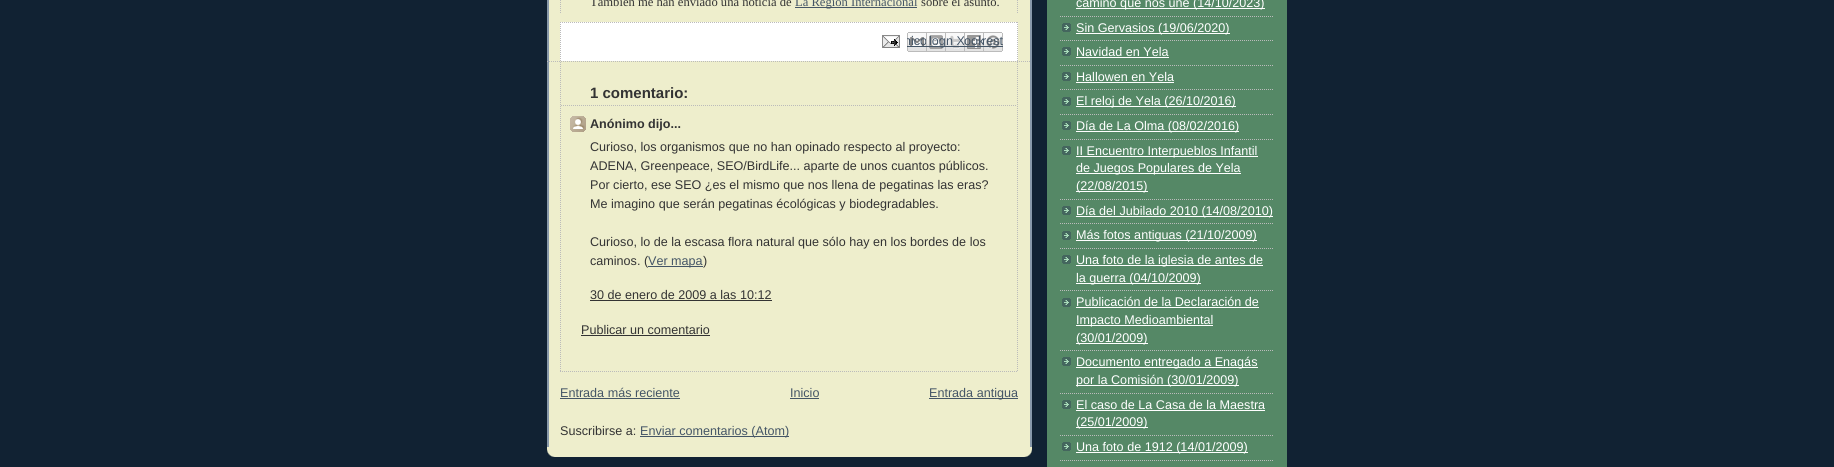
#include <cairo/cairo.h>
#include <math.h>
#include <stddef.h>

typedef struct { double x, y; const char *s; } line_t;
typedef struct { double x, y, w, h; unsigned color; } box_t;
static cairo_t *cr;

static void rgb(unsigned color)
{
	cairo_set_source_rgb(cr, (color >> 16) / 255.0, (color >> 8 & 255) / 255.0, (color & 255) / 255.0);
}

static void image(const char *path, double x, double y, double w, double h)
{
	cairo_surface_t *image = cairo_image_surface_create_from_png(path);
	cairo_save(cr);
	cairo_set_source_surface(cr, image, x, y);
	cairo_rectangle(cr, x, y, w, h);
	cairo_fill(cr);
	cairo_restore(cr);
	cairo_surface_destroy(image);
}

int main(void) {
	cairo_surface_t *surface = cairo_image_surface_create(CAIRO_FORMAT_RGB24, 1834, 467);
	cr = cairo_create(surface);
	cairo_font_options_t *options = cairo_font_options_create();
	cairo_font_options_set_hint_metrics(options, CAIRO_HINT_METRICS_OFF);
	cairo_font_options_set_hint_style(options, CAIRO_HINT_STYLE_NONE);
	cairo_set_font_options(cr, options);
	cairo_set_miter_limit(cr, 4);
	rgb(0x112233);
	cairo_paint(cr);
	rgb(0xeeeecc);
	cairo_rectangle(cr, 547, 0, 485, 457);
	cairo_fill(cr);
	image("img/1.png", 547, 449, 485, 8);
	image("img/2.png", 547, 0, 485, 447);
	cairo_new_path(cr);
	cairo_move_to(cr, 547, 61.5);
	cairo_line_to(cr, 1031, 61.5);
	rgb(0xbbbbbb);
	cairo_set_line_width(cr, 1);
	cairo_set_dash(cr, (double[]){1, 1}, 2, 0);
	cairo_stroke(cr);
	cairo_new_path(cr);
	cairo_move_to(cr, 1017.5, -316);
	cairo_line_to(cr, 1017.5, 13);
	cairo_stroke(cr);
	cairo_new_path(cr);
	cairo_move_to(cr, 560.5, -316);
	cairo_line_to(cr, 560.5, 13);
	cairo_stroke(cr);
	rgb(0x445566);
	cairo_rectangle(cr, 795, 7, 122, 1);
	cairo_fill(cr);
	rgb(0xffffff);
	cairo_rectangle(cr, 560, 22, 458, 39);
	cairo_fill(cr);
	cairo_new_path(cr);
	cairo_move_to(cr, 560, 22.5);
	cairo_line_to(cr, 1018, 22.5);
	rgb(0xbbbbbb);
	cairo_stroke(cr);
	cairo_new_path(cr);
	cairo_move_to(cr, 1017.5, 22);
	cairo_line_to(cr, 1017.5, 61);
	cairo_stroke(cr);
	cairo_new_path(cr);
	cairo_move_to(cr, 560.5, 22);
	cairo_line_to(cr, 560.5, 61);
	cairo_stroke(cr);
	image("img/3.png", 882, 35, 18, 13);
	image("img/4.png", 907, 32, 19, 20);
	rgb(0x445566);
	cairo_rectangle(cr, 907, 46, 20, 1);
	cairo_fill(cr);
	cairo_new_path(cr);
	cairo_move_to(cr, 1017.5, 62);
	cairo_line_to(cr, 1017.5, 372);
	rgb(0xbbbbbb);
	cairo_stroke(cr);
	cairo_new_path(cr);
	cairo_move_to(cr, 560, 371.5);
	cairo_line_to(cr, 1018, 371.5);
	cairo_stroke(cr);
	cairo_new_path(cr);
	cairo_move_to(cr, 560.5, 62);
	cairo_line_to(cr, 560.5, 372);
	cairo_stroke(cr);
	cairo_new_path(cr);
	cairo_move_to(cr, 561, 105.5);
	cairo_line_to(cr, 1017, 105.5);
	cairo_stroke(cr);
	image("img/9.png", 570, 116, 16, 16);
	{
		static const box_t items[] = {
			{590, 300, 182, 1, 0x333333},
			{581, 335, 129, 1, 0x333333},
			{560, 398, 120, 1, 0x445566},
			{790, 398, 29, 1, 0x445566},
			{929, 398, 89, 1, 0x445566},
			{640, 436, 149, 1, 0x445566},
			{1047, 0, 240, 467, 0x558866},
		};
		for (size_t i = 0; i < sizeof items / sizeof *items; i++) {
			rgb(items[i].color);
			cairo_rectangle(cr, items[i].x, items[i].y, items[i].w, items[i].h);
			cairo_fill(cr);
		}
	}
	cairo_new_path(cr);
	cairo_move_to(cr, 1060, 16.5);
	cairo_line_to(cr, 1274, 16.5);
	rgb(0xbbbbbb);
	cairo_stroke(cr);
	rgb(0xffffff);
	cairo_rectangle(cr, 1076, 8, 189, 1);
	cairo_fill(cr);
	image("img/10.png", 1062, 23, 9, 9);
	cairo_new_path(cr);
	cairo_move_to(cr, 1060, 40.5);
	cairo_line_to(cr, 1274, 40.5);
	rgb(0xbbbbbb);
	cairo_stroke(cr);
	rgb(0xffffff);
	cairo_rectangle(cr, 1076, 33, 154, 1);
	cairo_fill(cr);
	image("img/10.png", 1062, 47, 9, 9);
	cairo_new_path(cr);
	cairo_move_to(cr, 1060, 65.5);
	cairo_line_to(cr, 1274, 65.5);
	rgb(0xbbbbbb);
	cairo_stroke(cr);
	rgb(0xffffff);
	cairo_rectangle(cr, 1076, 57, 93, 1);
	cairo_fill(cr);
	image("img/10.png", 1062, 72, 9, 9);
	cairo_new_path(cr);
	cairo_move_to(cr, 1060, 89.5);
	cairo_line_to(cr, 1274, 89.5);
	rgb(0xbbbbbb);
	cairo_stroke(cr);
	rgb(0xffffff);
	cairo_rectangle(cr, 1076, 82, 98, 1);
	cairo_fill(cr);
	image("img/10.png", 1062, 97, 9, 9);
	cairo_new_path(cr);
	cairo_move_to(cr, 1060, 114.5);
	cairo_line_to(cr, 1274, 114.5);
	rgb(0xbbbbbb);
	cairo_stroke(cr);
	rgb(0xffffff);
	cairo_rectangle(cr, 1076, 106, 160, 1);
	cairo_fill(cr);
	image("img/10.png", 1062, 121, 9, 9);
	cairo_new_path(cr);
	cairo_move_to(cr, 1060, 139.5);
	cairo_line_to(cr, 1274, 139.5);
	rgb(0xbbbbbb);
	cairo_stroke(cr);
	rgb(0xffffff);
	cairo_rectangle(cr, 1076, 131, 163, 1);
	cairo_fill(cr);
	image("img/10.png", 1062, 146, 9, 9);
	cairo_new_path(cr);
	cairo_move_to(cr, 1060, 199.5);
	cairo_line_to(cr, 1274, 199.5);
	rgb(0xbbbbbb);
	cairo_stroke(cr);
	{
		static const box_t items[] = {
			{1076, 156, 182, 1, 0xffffff},
			{1076, 173, 165, 1, 0xffffff},
			{1076, 191, 72, 1, 0xffffff},
		};
		for (size_t i = 0; i < sizeof items / sizeof *items; i++) {
			rgb(items[i].color);
			cairo_rectangle(cr, items[i].x, items[i].y, items[i].w, items[i].h);
			cairo_fill(cr);
		}
	}
	image("img/10.png", 1062, 206, 9, 9);
	cairo_new_path(cr);
	cairo_move_to(cr, 1060, 223.5);
	cairo_line_to(cr, 1274, 223.5);
	rgb(0xbbbbbb);
	cairo_stroke(cr);
	rgb(0xffffff);
	cairo_rectangle(cr, 1076, 216, 197, 1);
	cairo_fill(cr);
	image("img/10.png", 1062, 231, 9, 9);
	cairo_new_path(cr);
	cairo_move_to(cr, 1060, 248.5);
	cairo_line_to(cr, 1274, 248.5);
	rgb(0xbbbbbb);
	cairo_stroke(cr);
	rgb(0xffffff);
	cairo_rectangle(cr, 1076, 240, 181, 1);
	cairo_fill(cr);
	image("img/10.png", 1062, 255, 9, 9);
	cairo_new_path(cr);
	cairo_move_to(cr, 1060, 290.5);
	cairo_line_to(cr, 1274, 290.5);
	rgb(0xbbbbbb);
	cairo_stroke(cr);
	rgb(0xffffff);
	cairo_rectangle(cr, 1076, 265, 187, 1);
	cairo_fill(cr);
	cairo_rectangle(cr, 1076, 283, 125, 1);
	cairo_fill(cr);
	image("img/10.png", 1062, 298, 9, 9);
	cairo_new_path(cr);
	cairo_move_to(cr, 1060, 350.5);
	cairo_line_to(cr, 1274, 350.5);
	rgb(0xbbbbbb);
	cairo_stroke(cr);
	{
		static const box_t items[] = {
			{1076, 307, 183, 1, 0xffffff},
			{1076, 325, 137, 1, 0xffffff},
			{1076, 343, 72, 1, 0xffffff},
		};
		for (size_t i = 0; i < sizeof items / sizeof *items; i++) {
			rgb(items[i].color);
			cairo_rectangle(cr, items[i].x, items[i].y, items[i].w, items[i].h);
			cairo_fill(cr);
		}
	}
	image("img/10.png", 1062, 357, 9, 9);
	cairo_new_path(cr);
	cairo_move_to(cr, 1060, 393.5);
	cairo_line_to(cr, 1274, 393.5);
	rgb(0xbbbbbb);
	cairo_stroke(cr);
	rgb(0xffffff);
	cairo_rectangle(cr, 1076, 367, 182, 1);
	cairo_fill(cr);
	cairo_rectangle(cr, 1076, 385, 163, 1);
	cairo_fill(cr);
	image("img/10.png", 1062, 400, 9, 9);
	cairo_new_path(cr);
	cairo_move_to(cr, 1060, 435.5);
	cairo_line_to(cr, 1274, 435.5);
	rgb(0xbbbbbb);
	cairo_stroke(cr);
	rgb(0xffffff);
	cairo_rectangle(cr, 1076, 410, 189, 1);
	cairo_fill(cr);
	cairo_rectangle(cr, 1076, 427, 72, 1);
	cairo_fill(cr);
	image("img/10.png", 1062, 442, 9, 9);
	cairo_new_path(cr);
	cairo_move_to(cr, 1060, 460.5);
	cairo_line_to(cr, 1274, 460.5);
	rgb(0xbbbbbb);
	cairo_stroke(cr);
	rgb(0xffffff);
	cairo_rectangle(cr, 1076, 452, 172, 1);
	cairo_fill(cr);
	cairo_select_font_face(cr, "Liberation Serif", CAIRO_FONT_SLANT_NORMAL, CAIRO_FONT_WEIGHT_NORMAL);
	cairo_set_font_size(cr, 12.6);
	rgb(0x333333);
	cairo_move_to(cr, 590, 6);
	cairo_show_text(cr, "También me han enviado una noticia de");
	rgb(0x445566);
	cairo_move_to(cr, 795, 6);
	cairo_show_text(cr, "La Región Internacional");
	rgb(0x333333);
	cairo_move_to(cr, 921, 6);
	cairo_show_text(cr, "sobre el asunto.");
	cairo_save(cr);
	cairo_rectangle(cr, 907, 32, 20, 20);
	cairo_clip(cr);
	cairo_select_font_face(cr, "Liberation Sans", CAIRO_FONT_SLANT_NORMAL, CAIRO_FONT_WEIGHT_NORMAL);
	rgb(0x445566);
	cairo_move_to(cr, 904, 45);
	cairo_show_text(cr, "nico");
	cairo_restore(cr);
	image("img/5.png", 926, 32, 19, 20);
	rgb(0x445566);
	cairo_rectangle(cr, 926, 46, 20, 1);
	cairo_fill(cr);
	cairo_select_font_face(cr, "Liberation Sans", CAIRO_FONT_SLANT_NORMAL, CAIRO_FONT_WEIGHT_NORMAL);
	cairo_move_to(cr, 929, 45);
	cairo_show_text(cr, "log");
	image("img/6.png", 945, 32, 19, 20);
	cairo_move_to(cr, 946, 45);
	cairo_show_text(cr, "n X");
	cairo_rectangle(cr, 945, 46, 20, 1);
	cairo_fill(cr);
	image("img/7.png", 964, 32, 19, 20);
	cairo_move_to(cr, 964, 45);
	cairo_show_text(cr, "ook");
	cairo_rectangle(cr, 964, 46, 20, 1);
	cairo_fill(cr);
	image("img/8.png", 983, 32, 20, 20);
	cairo_save(cr);
	cairo_rectangle(cr, 983, 32, 20, 20);
	cairo_clip(cr);
	cairo_move_to(cr, 982, 45);
	cairo_show_text(cr, "rest");
	cairo_restore(cr);
	cairo_rectangle(cr, 983, 46, 20, 1);
	cairo_fill(cr);
	cairo_select_font_face(cr, "Liberation Sans", CAIRO_FONT_SLANT_NORMAL, CAIRO_FONT_WEIGHT_BOLD);
	cairo_set_font_size(cr, 15);
	rgb(0x333333);
	cairo_move_to(cr, 590, 98);
	cairo_show_text(cr, "1 comentario:");
	cairo_set_font_size(cr, 12.6);
	cairo_move_to(cr, 590, 128);
	cairo_show_text(cr, "Anónimo dijo...");
	cairo_select_font_face(cr, "Liberation Sans", CAIRO_FONT_SLANT_NORMAL, CAIRO_FONT_WEIGHT_NORMAL);
	{
		static const line_t items[] = {
			{590, 151, "Curioso, los organismos que no han opinado respecto al proyecto:"},
			{590, 170, "ADENA, Greenpeace, SEO/BirdLife... aparte de unos cuantos públicos."},
			{590, 189, "Por cierto, ese SEO ¿es el mismo que nos llena de pegatinas las eras?"},
			{590, 208, "Me imagino que serán pegatinas écológicas y biodegradables."},
			{590, 246, "Curioso, lo de la escasa flora natural que sólo hay en los bordes de los"},
			{590, 265, "caminos. ("},
		};
		for (size_t i = 0; i < sizeof items / sizeof *items; i++) {
			cairo_move_to(cr, items[i].x, items[i].y);
			cairo_show_text(cr, items[i].s);
		}
	}
	rgb(0x445566);
	cairo_rectangle(cr, 648, 266, 55, 1);
	cairo_fill(cr);
	cairo_move_to(cr, 648, 265);
	cairo_show_text(cr, "Ver mapa");
	rgb(0x333333);
	{
		static const line_t items[] = {
			{703, 265, ")"},
			{590, 299, "30 de enero de 2009 a las 10:12"},
			{581, 334, "Publicar un comentario"},
		};
		for (size_t i = 0; i < sizeof items / sizeof *items; i++) {
			cairo_move_to(cr, items[i].x, items[i].y);
			cairo_show_text(cr, items[i].s);
		}
	}
	rgb(0x445566);
	{
		static const line_t items[] = {
			{560, 397, "Entrada más reciente"},
			{790, 397, "Inicio"},
			{929, 397, "Entrada antigua"},
		};
		for (size_t i = 0; i < sizeof items / sizeof *items; i++) {
			cairo_move_to(cr, items[i].x, items[i].y);
			cairo_show_text(cr, items[i].s);
		}
	}
	rgb(0x333333);
	cairo_move_to(cr, 560, 435);
	cairo_show_text(cr, "Suscribirse a:");
	rgb(0x445566);
	cairo_move_to(cr, 640, 435);
	cairo_show_text(cr, "Enviar comentarios (Atom)");
	rgb(0xffffff);
	{
		static const line_t items[] = {
			{1076, 7, "camino que nos une (14/10/2023)"},
			{1076, 32, "Sin Gervasios (19/06/2020)"},
			{1076, 56, "Navidad en Yela"},
			{1076, 81, "Hallowen en Yela"},
			{1076, 105, "El reloj de Yela (26/10/2016)"},
			{1076, 130, "Día de La Olma (08/02/2016)"},
			{1076, 155, "II Encuentro Interpueblos Infantil"},
			{1076, 172, "de Juegos Populares de Yela"},
			{1076, 190, "(22/08/2015)"},
			{1076, 215, "Día del Jubilado 2010 (14/08/2010)"},
			{1076, 239, "Más fotos antiguas (21/10/2009)"},
			{1076, 264, "Una foto de la iglesia de antes de"},
			{1076, 282, "la guerra (04/10/2009)"},
			{1076, 306, "Publicación de la Declaración de"},
			{1076, 324, "Impacto Medioambiental"},
			{1076, 342, "(30/01/2009)"},
			{1076, 366, "Documento entregado a Enagás"},
			{1076, 384, "por la Comisión (30/01/2009)"},
			{1076, 409, "El caso de La Casa de la Maestra"},
			{1076, 426, "(25/01/2009)"},
			{1076, 451, "Una foto de 1912 (14/01/2009)"},
		};
		for (size_t i = 0; i < sizeof items / sizeof *items; i++) {
			cairo_move_to(cr, items[i].x, items[i].y);
			cairo_show_text(cr, items[i].s);
		}
	}
	cairo_surface_write_to_png(surface, "page.png");
	cairo_font_options_destroy(options);
	cairo_destroy(cr);
	cairo_surface_destroy(surface);
	return 0;
}
